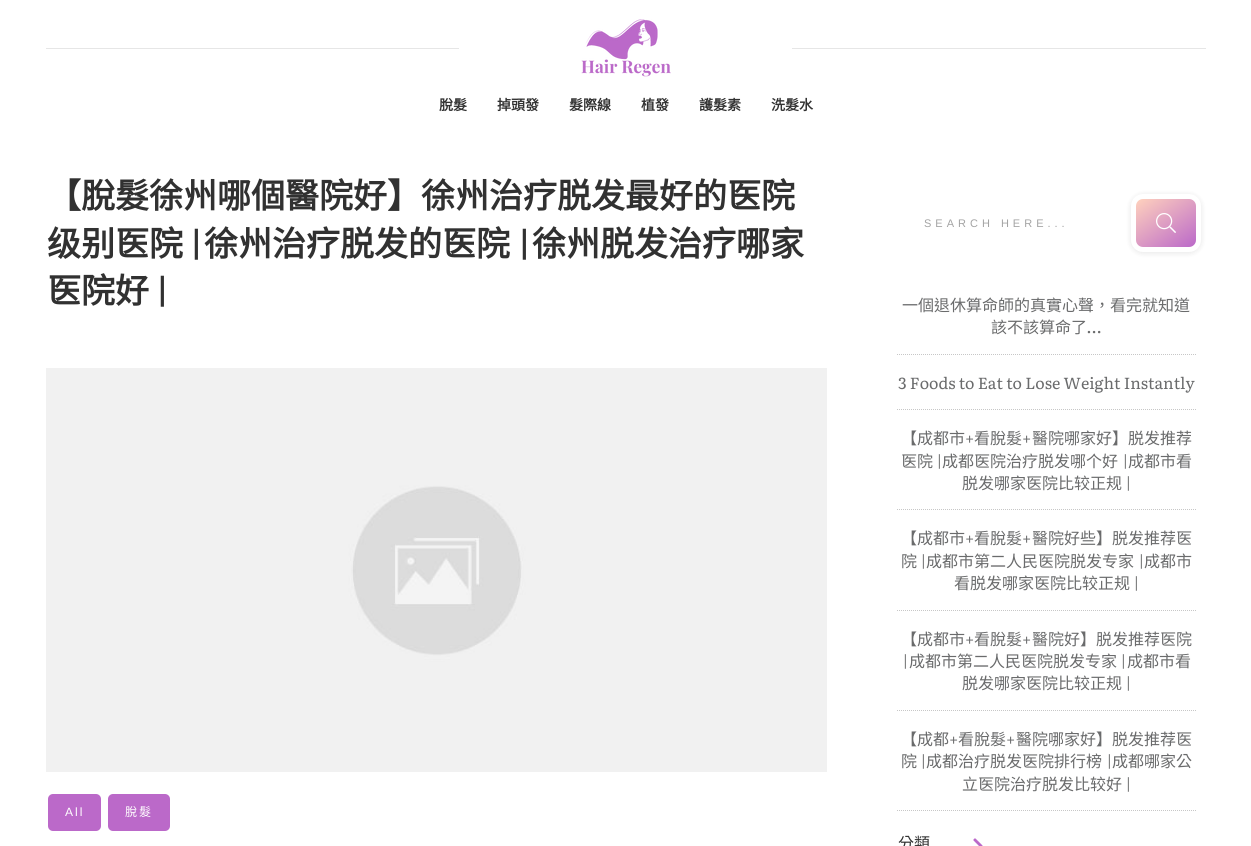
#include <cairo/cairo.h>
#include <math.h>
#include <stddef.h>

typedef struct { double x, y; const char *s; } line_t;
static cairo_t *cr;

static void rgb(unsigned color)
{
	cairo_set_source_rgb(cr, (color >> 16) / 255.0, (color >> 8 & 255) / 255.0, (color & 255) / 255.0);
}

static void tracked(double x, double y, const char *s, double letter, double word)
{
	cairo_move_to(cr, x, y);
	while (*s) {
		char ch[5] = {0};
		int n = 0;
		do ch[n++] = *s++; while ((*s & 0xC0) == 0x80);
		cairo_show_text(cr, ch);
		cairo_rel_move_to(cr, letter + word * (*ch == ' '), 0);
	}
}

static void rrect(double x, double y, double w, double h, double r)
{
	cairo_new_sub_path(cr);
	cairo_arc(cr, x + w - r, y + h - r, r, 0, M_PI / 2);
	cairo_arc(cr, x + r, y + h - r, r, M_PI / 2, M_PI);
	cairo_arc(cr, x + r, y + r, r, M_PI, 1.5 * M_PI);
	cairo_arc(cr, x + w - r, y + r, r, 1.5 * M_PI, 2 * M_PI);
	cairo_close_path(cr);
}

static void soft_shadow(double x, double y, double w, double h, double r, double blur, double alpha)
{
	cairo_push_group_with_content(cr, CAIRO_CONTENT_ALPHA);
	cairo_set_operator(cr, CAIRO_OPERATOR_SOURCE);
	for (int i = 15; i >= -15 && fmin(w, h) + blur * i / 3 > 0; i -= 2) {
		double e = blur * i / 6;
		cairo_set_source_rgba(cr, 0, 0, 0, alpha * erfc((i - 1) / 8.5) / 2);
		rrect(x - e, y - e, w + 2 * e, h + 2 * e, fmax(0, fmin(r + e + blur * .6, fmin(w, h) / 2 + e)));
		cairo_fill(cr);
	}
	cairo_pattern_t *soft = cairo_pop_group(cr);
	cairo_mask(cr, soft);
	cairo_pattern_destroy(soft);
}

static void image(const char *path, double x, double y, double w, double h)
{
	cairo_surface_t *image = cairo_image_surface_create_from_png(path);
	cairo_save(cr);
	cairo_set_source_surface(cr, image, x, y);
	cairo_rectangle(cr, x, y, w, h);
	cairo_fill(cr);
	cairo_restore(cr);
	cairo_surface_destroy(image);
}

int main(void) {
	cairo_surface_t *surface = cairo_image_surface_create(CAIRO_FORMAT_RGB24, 1251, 846);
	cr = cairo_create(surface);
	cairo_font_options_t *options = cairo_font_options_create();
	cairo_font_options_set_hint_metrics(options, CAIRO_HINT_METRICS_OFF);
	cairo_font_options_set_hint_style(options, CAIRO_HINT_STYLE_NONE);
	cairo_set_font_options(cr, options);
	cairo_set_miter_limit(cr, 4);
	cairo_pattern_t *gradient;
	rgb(0xffffff);
	cairo_paint(cr);
	rgb(0xe6e6e6);
	cairo_rectangle(cr, 46, 48, 413, 1);
	cairo_fill(cr);
	image("img/1.png", 581, 19, 90, 58);
	cairo_rectangle(cr, 792, 48, 414, 1);
	cairo_fill(cr);
	image("img/2.png", 46, 368, 781, 404);
	rgb(0xbb69c9);
	rrect(48, 794, 53, 37, 5);
	cairo_fill(cr);
	rrect(108, 794, 62, 37, 5);
	cairo_fill(cr);
	rgb(0x000000);
	soft_shadow(1130, 194, 72, 60, 13, 2.5, 0.08);
	gradient = cairo_pattern_create_linear(1145, 193, 1187, 253);
	cairo_pattern_add_color_stop_rgba(gradient, 0, 1, 0.82, 0.741, 1);
	cairo_pattern_add_color_stop_rgba(gradient, 1, 0.733, 0.412, 0.788, 1);
	cairo_set_source(cr, gradient);
	cairo_pattern_destroy(gradient);
	cairo_rectangle(cr, 1136, 199, 60, 48);
	cairo_fill(cr);
	rrect(1133.5, 196.5, 65, 53, 9.5);
	rgb(0xffffff);
	cairo_set_line_width(cr, 5);
	cairo_stroke(cr);
	image("img/3.png", 1156, 213, 20, 20);
	cairo_new_path(cr);
	cairo_move_to(cr, 897, 354.5);
	cairo_line_to(cr, 1197, 354.5);
	rgb(0xc7c7c7);
	cairo_set_line_width(cr, 1);
	cairo_set_dash(cr, (double[]){1, 1}, 2, 0);
	cairo_stroke(cr);
	cairo_new_path(cr);
	cairo_move_to(cr, 897, 409.5);
	cairo_line_to(cr, 1197, 409.5);
	cairo_stroke(cr);
	cairo_new_path(cr);
	cairo_move_to(cr, 897, 509.5);
	cairo_line_to(cr, 1197, 509.5);
	cairo_stroke(cr);
	cairo_new_path(cr);
	cairo_move_to(cr, 897, 610.5);
	cairo_line_to(cr, 1197, 610.5);
	cairo_stroke(cr);
	cairo_new_path(cr);
	cairo_move_to(cr, 897, 710.5);
	cairo_line_to(cr, 1197, 710.5);
	cairo_stroke(cr);
	cairo_new_path(cr);
	cairo_move_to(cr, 897, 810.5);
	cairo_line_to(cr, 1197, 810.5);
	cairo_stroke(cr);
	image("img/4.png", 973, 838, 10, 8);
	cairo_select_font_face(cr, "Noto Sans CJK TC", CAIRO_FONT_SLANT_NORMAL, CAIRO_FONT_WEIGHT_BOLD);
	cairo_set_font_size(cr, 14);
	rgb(0x313131);
	{
		static const line_t items[] = {
			{439, 110, "脫髮"},
			{497, 110, "掉頭發"},
			{569, 110, "髮際線"},
			{641, 110, "植發"},
			{699, 110, "護髮素"},
			{771, 110, "洗髮水"},
		};
		for (size_t i = 0; i < sizeof items / sizeof *items; i++) {
			cairo_move_to(cr, items[i].x, items[i].y);
			cairo_show_text(cr, items[i].s);
		}
	}
	cairo_set_font_size(cr, 34);
	cairo_move_to(cr, 47, 208);
	cairo_show_text(cr, "【脫髮徐州哪個醫院好】徐州治疗脱发最好的医院");
	cairo_move_to(cr, 47, 256);
	cairo_show_text(cr, "级别医院");
	cairo_select_font_face(cr, "Literata SemiBold", CAIRO_FONT_SLANT_NORMAL, CAIRO_FONT_WEIGHT_NORMAL);
	cairo_move_to(cr, 189, 256);
	cairo_show_text(cr, "|");
	cairo_select_font_face(cr, "Noto Sans CJK TC", CAIRO_FONT_SLANT_NORMAL, CAIRO_FONT_WEIGHT_BOLD);
	cairo_move_to(cr, 204, 256);
	cairo_show_text(cr, "徐州治疗脱发的医院");
	cairo_select_font_face(cr, "Literata SemiBold", CAIRO_FONT_SLANT_NORMAL, CAIRO_FONT_WEIGHT_NORMAL);
	cairo_move_to(cr, 517, 256);
	cairo_show_text(cr, "|");
	cairo_select_font_face(cr, "Noto Sans CJK TC", CAIRO_FONT_SLANT_NORMAL, CAIRO_FONT_WEIGHT_BOLD);
	cairo_move_to(cr, 532, 256);
	cairo_show_text(cr, "徐州脱发治疗哪家");
	cairo_move_to(cr, 47, 303);
	cairo_show_text(cr, "医院好");
	cairo_select_font_face(cr, "Literata SemiBold", CAIRO_FONT_SLANT_NORMAL, CAIRO_FONT_WEIGHT_NORMAL);
	cairo_move_to(cr, 155, 303);
	cairo_show_text(cr, "|");
	cairo_select_font_face(cr, "Liberation Sans", CAIRO_FONT_SLANT_NORMAL, CAIRO_FONT_WEIGHT_NORMAL);
	cairo_set_font_size(cr, 12);
	rgb(0xffffff);
	tracked(65, 816, "All", 2, 0);
	cairo_select_font_face(cr, "Noto Sans CJK TC", CAIRO_FONT_SLANT_NORMAL, CAIRO_FONT_WEIGHT_NORMAL);
	tracked(125, 816, "脫髮", 2, 0);
	cairo_select_font_face(cr, "Liberation Sans", CAIRO_FONT_SLANT_NORMAL, CAIRO_FONT_WEIGHT_NORMAL);
	cairo_set_font_size(cr, 11);
	rgb(0xa3a3a3);
	tracked(924, 227, "SEARCH HERE...", 4, 0);
	cairo_select_font_face(cr, "Noto Sans CJK TC", CAIRO_FONT_SLANT_NORMAL, CAIRO_FONT_WEIGHT_NORMAL);
	cairo_set_font_size(cr, 16);
	rgb(0x6a6b6c);
	cairo_move_to(cr, 902, 311);
	cairo_show_text(cr, "一個退休算命師的真實心聲，看完就知道");
	cairo_move_to(cr, 991, 333);
	cairo_show_text(cr, "該不該算命了");
	cairo_select_font_face(cr, "Literata", CAIRO_FONT_SLANT_NORMAL, CAIRO_FONT_WEIGHT_NORMAL);
	cairo_move_to(cr, 1087, 333);
	cairo_show_text(cr, "…");
	cairo_move_to(cr, 898, 389);
	cairo_show_text(cr, "3 Foods to Eat to Lose Weight Instantly");
	cairo_select_font_face(cr, "Noto Sans CJK TC", CAIRO_FONT_SLANT_NORMAL, CAIRO_FONT_WEIGHT_NORMAL);
	cairo_move_to(cr, 901, 444);
	cairo_show_text(cr, "【成都市");
	cairo_select_font_face(cr, "Literata", CAIRO_FONT_SLANT_NORMAL, CAIRO_FONT_WEIGHT_NORMAL);
	cairo_move_to(cr, 965, 444);
	cairo_show_text(cr, "+");
	cairo_select_font_face(cr, "Noto Sans CJK TC", CAIRO_FONT_SLANT_NORMAL, CAIRO_FONT_WEIGHT_NORMAL);
	cairo_move_to(cr, 974, 444);
	cairo_show_text(cr, "看脫髮");
	cairo_select_font_face(cr, "Literata", CAIRO_FONT_SLANT_NORMAL, CAIRO_FONT_WEIGHT_NORMAL);
	cairo_move_to(cr, 1022, 444);
	cairo_show_text(cr, "+");
	cairo_select_font_face(cr, "Noto Sans CJK TC", CAIRO_FONT_SLANT_NORMAL, CAIRO_FONT_WEIGHT_NORMAL);
	cairo_move_to(cr, 1032, 444);
	cairo_show_text(cr, "醫院哪家好】脱发推荐");
	cairo_move_to(cr, 901, 467);
	cairo_show_text(cr, "医院");
	cairo_select_font_face(cr, "Literata", CAIRO_FONT_SLANT_NORMAL, CAIRO_FONT_WEIGHT_NORMAL);
	cairo_move_to(cr, 936, 467);
	cairo_show_text(cr, "|");
	cairo_select_font_face(cr, "Noto Sans CJK TC", CAIRO_FONT_SLANT_NORMAL, CAIRO_FONT_WEIGHT_NORMAL);
	cairo_move_to(cr, 942, 467);
	cairo_show_text(cr, "成都医院治疗脱发哪个好");
	cairo_select_font_face(cr, "Literata", CAIRO_FONT_SLANT_NORMAL, CAIRO_FONT_WEIGHT_NORMAL);
	cairo_move_to(cr, 1122, 467);
	cairo_show_text(cr, "|");
	cairo_select_font_face(cr, "Noto Sans CJK TC", CAIRO_FONT_SLANT_NORMAL, CAIRO_FONT_WEIGHT_NORMAL);
	cairo_move_to(cr, 1128, 467);
	cairo_show_text(cr, "成都市看");
	cairo_move_to(cr, 962, 489);
	cairo_show_text(cr, "脱发哪家医院比较正规");
	cairo_select_font_face(cr, "Literata", CAIRO_FONT_SLANT_NORMAL, CAIRO_FONT_WEIGHT_NORMAL);
	cairo_move_to(cr, 1125, 489);
	cairo_show_text(cr, "|");
	cairo_select_font_face(cr, "Noto Sans CJK TC", CAIRO_FONT_SLANT_NORMAL, CAIRO_FONT_WEIGHT_NORMAL);
	cairo_move_to(cr, 901, 544);
	cairo_show_text(cr, "【成都市");
	cairo_select_font_face(cr, "Literata", CAIRO_FONT_SLANT_NORMAL, CAIRO_FONT_WEIGHT_NORMAL);
	cairo_move_to(cr, 965, 544);
	cairo_show_text(cr, "+");
	cairo_select_font_face(cr, "Noto Sans CJK TC", CAIRO_FONT_SLANT_NORMAL, CAIRO_FONT_WEIGHT_NORMAL);
	cairo_move_to(cr, 974, 544);
	cairo_show_text(cr, "看脫髮");
	cairo_select_font_face(cr, "Literata", CAIRO_FONT_SLANT_NORMAL, CAIRO_FONT_WEIGHT_NORMAL);
	cairo_move_to(cr, 1022, 544);
	cairo_show_text(cr, "+");
	cairo_select_font_face(cr, "Noto Sans CJK TC", CAIRO_FONT_SLANT_NORMAL, CAIRO_FONT_WEIGHT_NORMAL);
	cairo_move_to(cr, 1032, 544);
	cairo_show_text(cr, "醫院好些】脱发推荐医");
	cairo_move_to(cr, 901, 567);
	cairo_show_text(cr, "院");
	cairo_select_font_face(cr, "Literata", CAIRO_FONT_SLANT_NORMAL, CAIRO_FONT_WEIGHT_NORMAL);
	cairo_move_to(cr, 920, 567);
	cairo_show_text(cr, "|");
	cairo_select_font_face(cr, "Noto Sans CJK TC", CAIRO_FONT_SLANT_NORMAL, CAIRO_FONT_WEIGHT_NORMAL);
	cairo_move_to(cr, 926, 567);
	cairo_show_text(cr, "成都市第二人民医院脱发专家");
	cairo_select_font_face(cr, "Literata", CAIRO_FONT_SLANT_NORMAL, CAIRO_FONT_WEIGHT_NORMAL);
	cairo_move_to(cr, 1138, 567);
	cairo_show_text(cr, "|");
	cairo_select_font_face(cr, "Noto Sans CJK TC", CAIRO_FONT_SLANT_NORMAL, CAIRO_FONT_WEIGHT_NORMAL);
	cairo_move_to(cr, 1144, 567);
	cairo_show_text(cr, "成都市");
	cairo_move_to(cr, 954, 589);
	cairo_show_text(cr, "看脱发哪家医院比较正规");
	cairo_select_font_face(cr, "Literata", CAIRO_FONT_SLANT_NORMAL, CAIRO_FONT_WEIGHT_NORMAL);
	cairo_move_to(cr, 1133, 589);
	cairo_show_text(cr, "|");
	cairo_select_font_face(cr, "Noto Sans CJK TC", CAIRO_FONT_SLANT_NORMAL, CAIRO_FONT_WEIGHT_NORMAL);
	cairo_move_to(cr, 901, 645);
	cairo_show_text(cr, "【成都市");
	cairo_select_font_face(cr, "Literata", CAIRO_FONT_SLANT_NORMAL, CAIRO_FONT_WEIGHT_NORMAL);
	cairo_move_to(cr, 965, 645);
	cairo_show_text(cr, "+");
	cairo_select_font_face(cr, "Noto Sans CJK TC", CAIRO_FONT_SLANT_NORMAL, CAIRO_FONT_WEIGHT_NORMAL);
	cairo_move_to(cr, 974, 645);
	cairo_show_text(cr, "看脫髮");
	cairo_select_font_face(cr, "Literata", CAIRO_FONT_SLANT_NORMAL, CAIRO_FONT_WEIGHT_NORMAL);
	cairo_move_to(cr, 1022, 645);
	cairo_show_text(cr, "+");
	cairo_select_font_face(cr, "Noto Sans CJK TC", CAIRO_FONT_SLANT_NORMAL, CAIRO_FONT_WEIGHT_NORMAL);
	cairo_move_to(cr, 1032, 645);
	cairo_show_text(cr, "醫院好】脱发推荐医院");
	cairo_select_font_face(cr, "Literata", CAIRO_FONT_SLANT_NORMAL, CAIRO_FONT_WEIGHT_NORMAL);
	cairo_move_to(cr, 902, 667);
	cairo_show_text(cr, "|");
	cairo_select_font_face(cr, "Noto Sans CJK TC", CAIRO_FONT_SLANT_NORMAL, CAIRO_FONT_WEIGHT_NORMAL);
	cairo_move_to(cr, 909, 667);
	cairo_show_text(cr, "成都市第二人民医院脱发专家");
	cairo_select_font_face(cr, "Literata", CAIRO_FONT_SLANT_NORMAL, CAIRO_FONT_WEIGHT_NORMAL);
	cairo_move_to(cr, 1120, 667);
	cairo_show_text(cr, "|");
	cairo_select_font_face(cr, "Noto Sans CJK TC", CAIRO_FONT_SLANT_NORMAL, CAIRO_FONT_WEIGHT_NORMAL);
	cairo_move_to(cr, 1127, 667);
	cairo_show_text(cr, "成都市看");
	cairo_move_to(cr, 962, 689);
	cairo_show_text(cr, "脱发哪家医院比较正规");
	cairo_select_font_face(cr, "Literata", CAIRO_FONT_SLANT_NORMAL, CAIRO_FONT_WEIGHT_NORMAL);
	cairo_move_to(cr, 1125, 689);
	cairo_show_text(cr, "|");
	cairo_select_font_face(cr, "Noto Sans CJK TC", CAIRO_FONT_SLANT_NORMAL, CAIRO_FONT_WEIGHT_NORMAL);
	cairo_move_to(cr, 901, 745);
	cairo_show_text(cr, "【成都");
	cairo_select_font_face(cr, "Literata", CAIRO_FONT_SLANT_NORMAL, CAIRO_FONT_WEIGHT_NORMAL);
	cairo_move_to(cr, 949, 745);
	cairo_show_text(cr, "+");
	cairo_select_font_face(cr, "Noto Sans CJK TC", CAIRO_FONT_SLANT_NORMAL, CAIRO_FONT_WEIGHT_NORMAL);
	cairo_move_to(cr, 958, 745);
	cairo_show_text(cr, "看脫髮");
	cairo_select_font_face(cr, "Literata", CAIRO_FONT_SLANT_NORMAL, CAIRO_FONT_WEIGHT_NORMAL);
	cairo_move_to(cr, 1006, 745);
	cairo_show_text(cr, "+");
	cairo_select_font_face(cr, "Noto Sans CJK TC", CAIRO_FONT_SLANT_NORMAL, CAIRO_FONT_WEIGHT_NORMAL);
	cairo_move_to(cr, 1016, 745);
	cairo_show_text(cr, "醫院哪家好】脱发推荐医");
	cairo_move_to(cr, 901, 767);
	cairo_show_text(cr, "院");
	cairo_select_font_face(cr, "Literata", CAIRO_FONT_SLANT_NORMAL, CAIRO_FONT_WEIGHT_NORMAL);
	cairo_move_to(cr, 920, 767);
	cairo_show_text(cr, "|");
	cairo_select_font_face(cr, "Noto Sans CJK TC", CAIRO_FONT_SLANT_NORMAL, CAIRO_FONT_WEIGHT_NORMAL);
	cairo_move_to(cr, 926, 767);
	cairo_show_text(cr, "成都治疗脱发医院排行榜");
	cairo_select_font_face(cr, "Literata", CAIRO_FONT_SLANT_NORMAL, CAIRO_FONT_WEIGHT_NORMAL);
	cairo_move_to(cr, 1106, 767);
	cairo_show_text(cr, "|");
	cairo_select_font_face(cr, "Noto Sans CJK TC", CAIRO_FONT_SLANT_NORMAL, CAIRO_FONT_WEIGHT_NORMAL);
	cairo_move_to(cr, 1112, 767);
	cairo_show_text(cr, "成都哪家公");
	cairo_move_to(cr, 962, 790);
	cairo_show_text(cr, "立医院治疗脱发比较好");
	cairo_select_font_face(cr, "Literata", CAIRO_FONT_SLANT_NORMAL, CAIRO_FONT_WEIGHT_NORMAL);
	cairo_move_to(cr, 1125, 790);
	cairo_show_text(cr, "|");
	cairo_select_font_face(cr, "Noto Sans CJK TC", CAIRO_FONT_SLANT_NORMAL, CAIRO_FONT_WEIGHT_NORMAL);
	rgb(0x313131);
	cairo_move_to(cr, 898, 849);
	cairo_show_text(cr, "分類");
	cairo_surface_write_to_png(surface, "page.png");
	cairo_font_options_destroy(options);
	cairo_destroy(cr);
	cairo_surface_destroy(surface);
	return 0;
}
